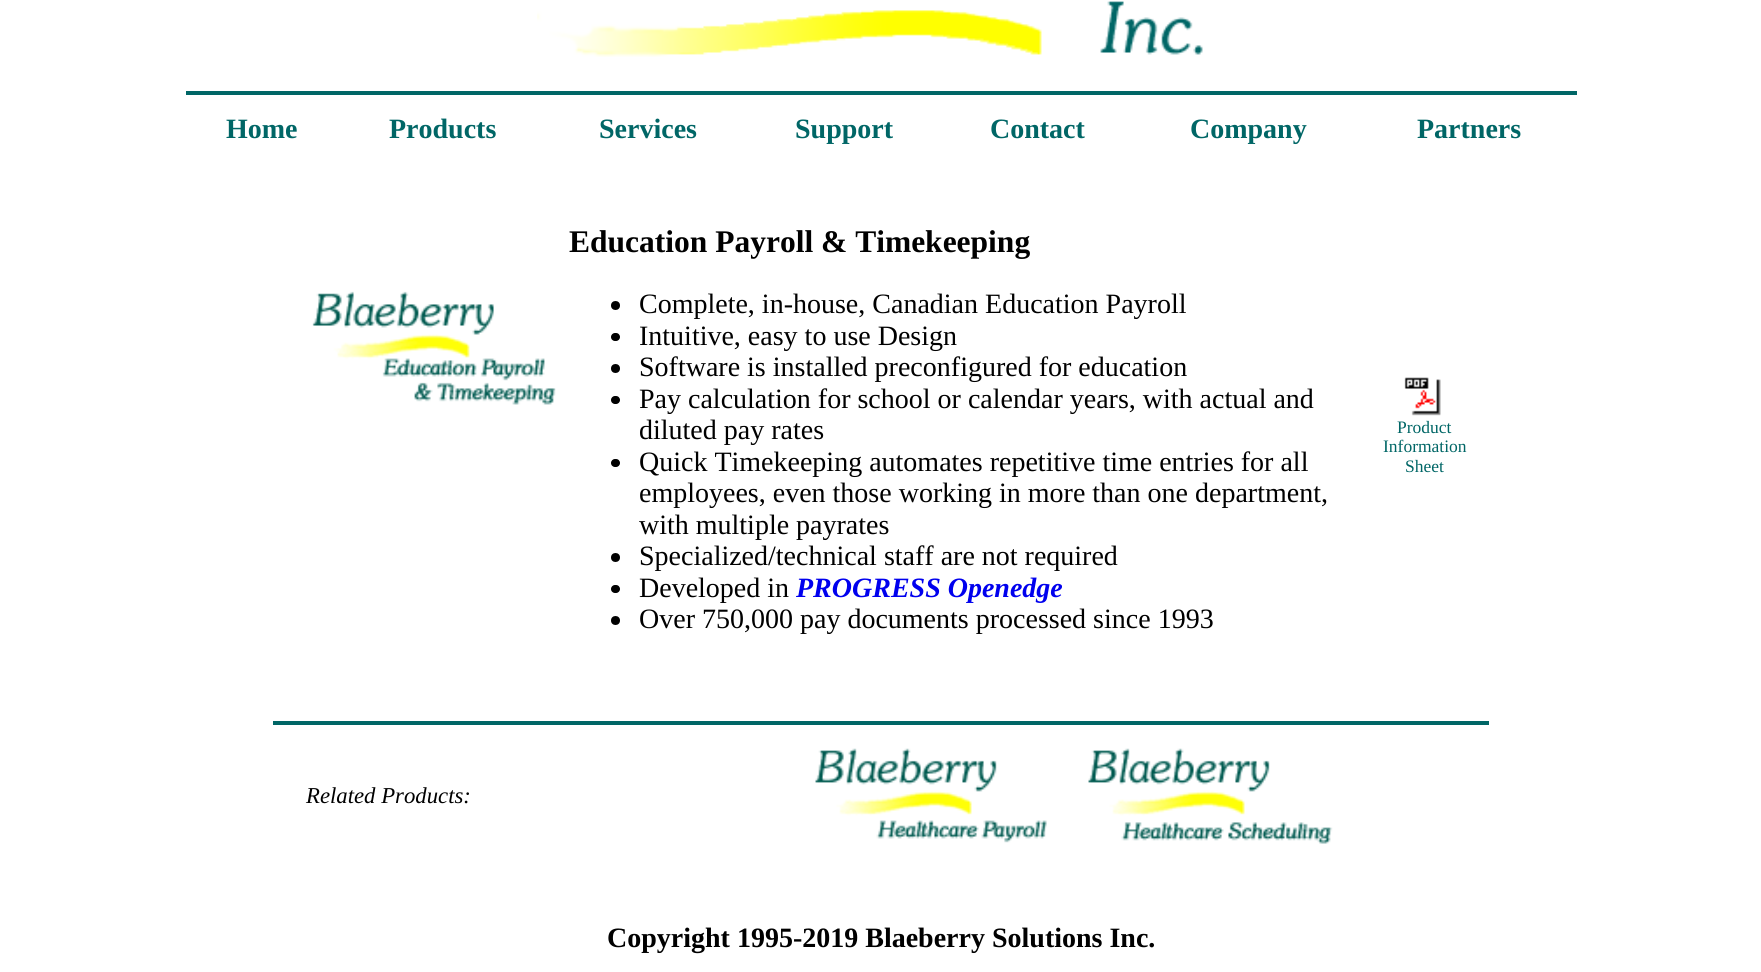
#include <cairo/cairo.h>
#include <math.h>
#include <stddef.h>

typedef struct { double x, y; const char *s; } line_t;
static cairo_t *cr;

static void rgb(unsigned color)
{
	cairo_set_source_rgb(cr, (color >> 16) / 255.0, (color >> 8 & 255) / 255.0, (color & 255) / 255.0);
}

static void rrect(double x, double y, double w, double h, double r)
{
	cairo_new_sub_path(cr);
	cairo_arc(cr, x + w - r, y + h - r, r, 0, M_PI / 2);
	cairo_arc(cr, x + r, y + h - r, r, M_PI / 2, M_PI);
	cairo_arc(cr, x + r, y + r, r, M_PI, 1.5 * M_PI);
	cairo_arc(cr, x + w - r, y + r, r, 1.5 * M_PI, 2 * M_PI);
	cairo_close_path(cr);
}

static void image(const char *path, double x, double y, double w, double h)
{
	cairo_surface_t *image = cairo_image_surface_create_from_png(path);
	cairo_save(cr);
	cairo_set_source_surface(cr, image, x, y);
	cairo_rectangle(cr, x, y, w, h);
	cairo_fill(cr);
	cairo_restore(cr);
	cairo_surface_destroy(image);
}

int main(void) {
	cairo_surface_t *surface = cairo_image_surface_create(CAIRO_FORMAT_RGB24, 1761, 972);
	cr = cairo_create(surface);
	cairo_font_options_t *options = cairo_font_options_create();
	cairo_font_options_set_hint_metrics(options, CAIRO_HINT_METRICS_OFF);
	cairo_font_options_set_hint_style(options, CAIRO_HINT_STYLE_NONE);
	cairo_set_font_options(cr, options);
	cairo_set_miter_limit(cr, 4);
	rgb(0xffffff);
	cairo_paint(cr);
	image("img/1.png", 537, 1, 666, 56);
	rgb(0x006666);
	cairo_rectangle(cr, 186, 91, 1391, 4);
	cairo_fill(cr);
	image("img/2.png", 312, 291, 244, 114);
	rgb(0x000000);
	cairo_arc(cr, 615.5, 305.5, 4.5, 0, 2 * M_PI);
	cairo_fill(cr);
	rrect(611, 333, 9, 8, 4);
	cairo_fill(cr);
	cairo_arc(cr, 615.5, 368.5, 4.5, 0, 2 * M_PI);
	cairo_fill(cr);
	rrect(611, 396, 9, 8, 4);
	cairo_fill(cr);
	rrect(611, 459, 9, 8, 4);
	cairo_fill(cr);
	cairo_arc(cr, 615.5, 557.5, 4.5, 0, 2 * M_PI);
	cairo_fill(cr);
	rrect(611, 585, 9, 8, 4);
	cairo_fill(cr);
	cairo_arc(cr, 615.5, 620.5, 4.5, 0, 2 * M_PI);
	cairo_fill(cr);
	image("img/3.png", 1404, 377, 37, 39);
	rgb(0x006666);
	cairo_rectangle(cr, 273, 721, 1216, 4);
	cairo_fill(cr);
	image("img/4.png", 815, 748, 232, 95);
	image("img/5.png", 1088, 748, 245, 96);
	cairo_select_font_face(cr, "Liberation Serif", CAIRO_FONT_SLANT_NORMAL, CAIRO_FONT_WEIGHT_BOLD);
	cairo_set_font_size(cr, 28);
	{
		static const line_t items[] = {
			{226, 138, "Home"},
			{389, 138, "Products"},
			{599, 138, "Services"},
			{795, 138, "Support"},
			{990, 138, "Contact"},
			{1190, 138, "Company"},
			{1417, 138, "Partners"},
		};
		for (size_t i = 0; i < sizeof items / sizeof *items; i++) {
			cairo_move_to(cr, items[i].x, items[i].y);
			cairo_show_text(cr, items[i].s);
		}
	}
	cairo_set_font_size(cr, 31.5);
	rgb(0x000000);
	cairo_move_to(cr, 569, 252);
	cairo_show_text(cr, "Education Payroll & Timekeeping");
	cairo_select_font_face(cr, "Liberation Serif", CAIRO_FONT_SLANT_NORMAL, CAIRO_FONT_WEIGHT_NORMAL);
	cairo_set_font_size(cr, 28);
	{
		static const line_t items[] = {
			{639, 313, "Complete, in-house, Canadian Education Payroll"},
			{639, 345, "Intuitive, easy to use Design"},
			{639, 376, "Software is installed preconfigured for education"},
			{639, 408, "Pay calculation for school or calendar years, with actual and"},
			{639, 439, "diluted pay rates"},
			{639, 471, "Quick Timekeeping automates repetitive time entries for all"},
			{639, 502, "employees, even those working in more than one department,"},
			{639, 534, "with multiple payrates"},
			{639, 565, "Specialized/technical staff are not required"},
			{639, 597, "Developed in"},
		};
		for (size_t i = 0; i < sizeof items / sizeof *items; i++) {
			cairo_move_to(cr, items[i].x, items[i].y);
			cairo_show_text(cr, items[i].s);
		}
	}
	cairo_select_font_face(cr, "Liberation Serif", CAIRO_FONT_SLANT_ITALIC, CAIRO_FONT_WEIGHT_BOLD);
	rgb(0x0000ee);
	cairo_move_to(cr, 796, 597);
	cairo_show_text(cr, "PROGRESS Openedge");
	cairo_select_font_face(cr, "Liberation Serif", CAIRO_FONT_SLANT_NORMAL, CAIRO_FONT_WEIGHT_NORMAL);
	rgb(0x000000);
	cairo_move_to(cr, 639, 628);
	cairo_show_text(cr, "Over 750,000 pay documents processed since 1993");
	cairo_set_font_size(cr, 17.5);
	rgb(0x006666);
	{
		static const line_t items[] = {
			{1397, 433, "Product"},
			{1383, 452, "Information"},
			{1405, 472, "Sheet"},
		};
		for (size_t i = 0; i < sizeof items / sizeof *items; i++) {
			cairo_move_to(cr, items[i].x, items[i].y);
			cairo_show_text(cr, items[i].s);
		}
	}
	cairo_select_font_face(cr, "Liberation Serif", CAIRO_FONT_SLANT_ITALIC, CAIRO_FONT_WEIGHT_NORMAL);
	cairo_set_font_size(cr, 22.75);
	rgb(0x000000);
	cairo_move_to(cr, 306, 803);
	cairo_show_text(cr, "Related Products:");
	cairo_select_font_face(cr, "Liberation Serif", CAIRO_FONT_SLANT_NORMAL, CAIRO_FONT_WEIGHT_BOLD);
	cairo_set_font_size(cr, 28);
	cairo_move_to(cr, 607, 947);
	cairo_show_text(cr, "Copyright 1995-2019 Blaeberry Solutions Inc.");
	cairo_surface_write_to_png(surface, "page.png");
	cairo_font_options_destroy(options);
	cairo_destroy(cr);
	cairo_surface_destroy(surface);
	return 0;
}
